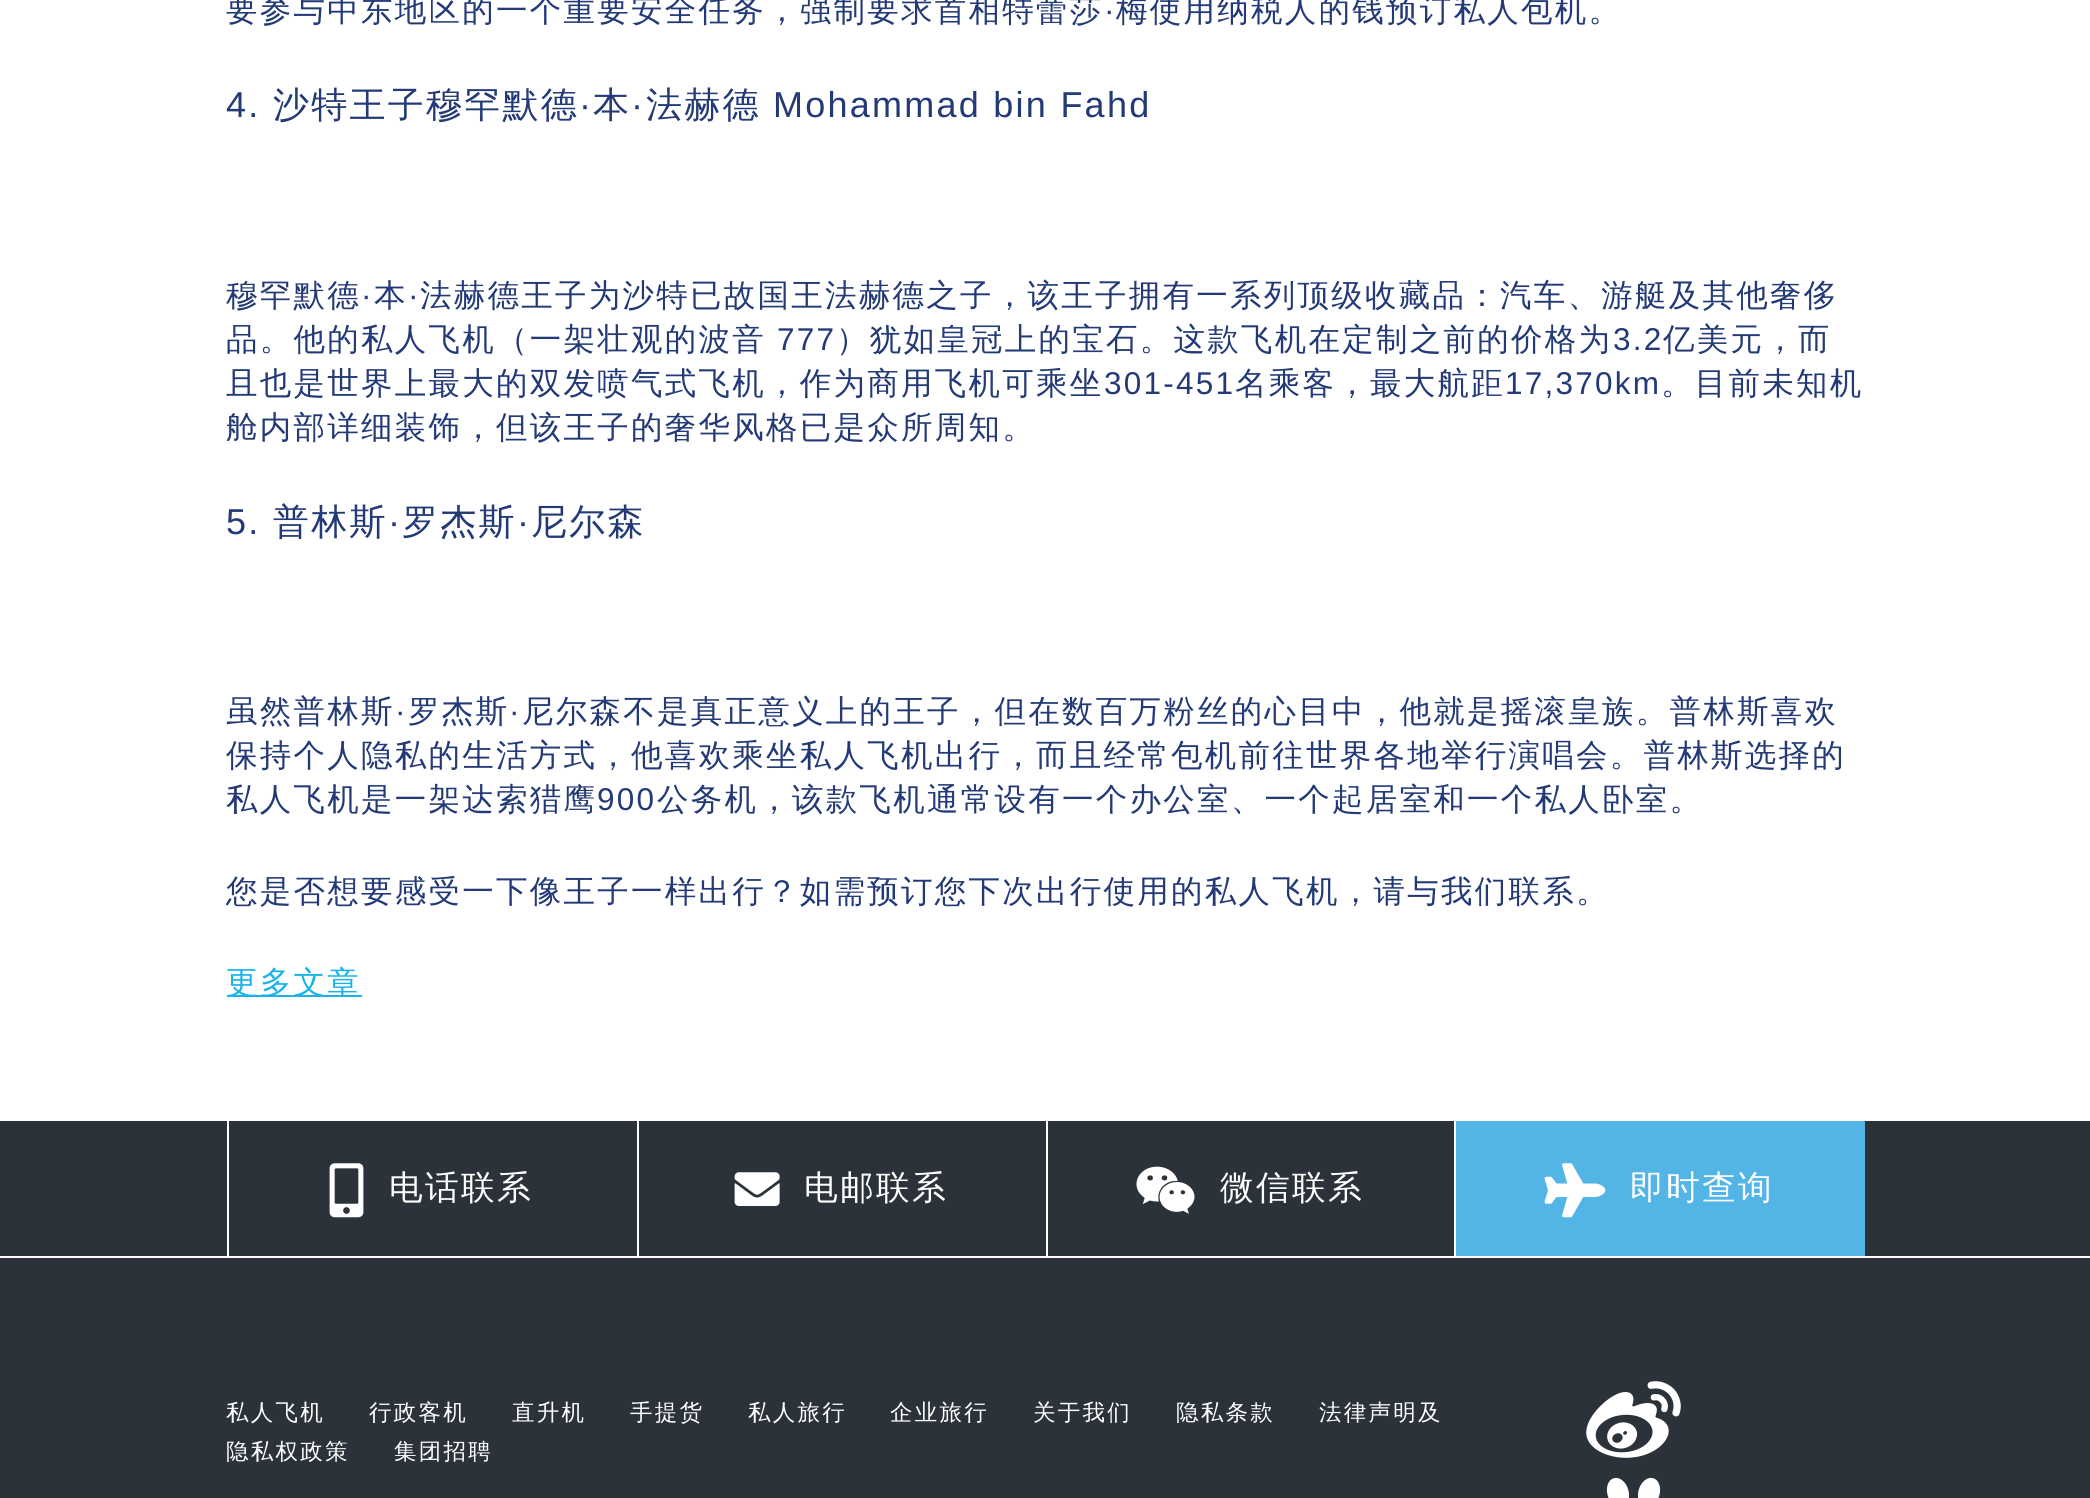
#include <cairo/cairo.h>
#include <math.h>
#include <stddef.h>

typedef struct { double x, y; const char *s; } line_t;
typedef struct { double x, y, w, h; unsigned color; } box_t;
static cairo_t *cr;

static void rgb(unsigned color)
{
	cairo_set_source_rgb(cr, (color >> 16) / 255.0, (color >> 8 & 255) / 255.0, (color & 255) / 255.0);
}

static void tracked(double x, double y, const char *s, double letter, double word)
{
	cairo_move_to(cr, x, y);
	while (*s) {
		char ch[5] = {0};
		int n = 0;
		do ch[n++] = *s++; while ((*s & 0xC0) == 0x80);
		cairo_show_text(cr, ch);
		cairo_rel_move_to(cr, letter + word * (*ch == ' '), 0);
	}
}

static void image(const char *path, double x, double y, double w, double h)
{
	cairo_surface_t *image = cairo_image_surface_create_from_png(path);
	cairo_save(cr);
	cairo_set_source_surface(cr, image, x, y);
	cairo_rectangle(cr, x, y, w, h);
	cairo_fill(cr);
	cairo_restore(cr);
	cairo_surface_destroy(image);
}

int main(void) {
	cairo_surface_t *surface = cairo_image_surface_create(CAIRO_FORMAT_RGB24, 2090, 1498);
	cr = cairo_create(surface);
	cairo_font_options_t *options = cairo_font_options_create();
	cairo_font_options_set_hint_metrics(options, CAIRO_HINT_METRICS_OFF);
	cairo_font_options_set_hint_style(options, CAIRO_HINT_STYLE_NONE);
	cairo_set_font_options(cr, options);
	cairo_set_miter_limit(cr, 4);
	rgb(0xffffff);
	cairo_paint(cr);
	{
		static const box_t items[] = {
			{227, 995, 135, 2, 0x18b3ea},
			{0, 1121, 2090, 377, 0x2b323a},
			{227, 1121, 2, 135, 0xffffff},
			{637, 1121, 2, 135, 0xffffff},
		};
		for (size_t i = 0; i < sizeof items / sizeof *items; i++) {
			rgb(items[i].color);
			cairo_rectangle(cr, items[i].x, items[i].y, items[i].w, items[i].h);
			cairo_fill(cr);
		}
	}
	image("img/1.png", 329, 1163, 35, 55);
	cairo_rectangle(cr, 1046, 1121, 2, 135);
	cairo_fill(cr);
	image("img/2.png", 734, 1172, 46, 34);
	cairo_rectangle(cr, 1454, 1121, 2, 135);
	cairo_fill(cr);
	image("img/3.png", 1136, 1166, 59, 48);
	rgb(0x53b4e6);
	cairo_rectangle(cr, 1456, 1121, 409, 135);
	cairo_fill(cr);
	image("img/4.png", 1544, 1163, 62, 55);
	rgb(0xffffff);
	cairo_rectangle(cr, 0, 1256, 2090, 2);
	cairo_fill(cr);
	image("img/5.png", 1586, 1381, 95, 77);
	image("img/6.png", 1606, 1477, 55, 21);
	cairo_select_font_face(cr, "WenQuanYi Zen Hei Medium", CAIRO_FONT_SLANT_NORMAL, CAIRO_FONT_WEIGHT_NORMAL);
	cairo_set_font_size(cr, 31.5);
	rgb(0x233a77);
	tracked(226, 21, "要参与中东地区的一个重要安全任务，强制要求首相特蕾莎", 2.25, 0);
	cairo_select_font_face(cr, "Liberation Sans", CAIRO_FONT_SLANT_NORMAL, CAIRO_FONT_WEIGHT_NORMAL);
	tracked(1104, 21, "·", 2.25, 0);
	cairo_select_font_face(cr, "WenQuanYi Zen Hei Medium", CAIRO_FONT_SLANT_NORMAL, CAIRO_FONT_WEIGHT_NORMAL);
	tracked(1116, 21, "梅使用纳税人的钱预订私人包机。", 2.25, 0);
	cairo_select_font_face(cr, "Liberation Sans", CAIRO_FONT_SLANT_NORMAL, CAIRO_FONT_WEIGHT_NORMAL);
	cairo_set_font_size(cr, 36);
	tracked(226, 117, "4.", 2.25, 0);
	cairo_select_font_face(cr, "WenQuanYi Zen Hei Medium", CAIRO_FONT_SLANT_NORMAL, CAIRO_FONT_WEIGHT_NORMAL);
	tracked(273, 117, "沙特王子穆罕默德", 2.25, 0);
	cairo_select_font_face(cr, "Liberation Sans", CAIRO_FONT_SLANT_NORMAL, CAIRO_FONT_WEIGHT_NORMAL);
	tracked(579, 117, "·", 2.25, 0);
	cairo_select_font_face(cr, "WenQuanYi Zen Hei Medium", CAIRO_FONT_SLANT_NORMAL, CAIRO_FONT_WEIGHT_NORMAL);
	tracked(593, 117, "本", 2.25, 0);
	cairo_select_font_face(cr, "Liberation Sans", CAIRO_FONT_SLANT_NORMAL, CAIRO_FONT_WEIGHT_NORMAL);
	tracked(631, 117, "·", 2.25, 0);
	cairo_select_font_face(cr, "WenQuanYi Zen Hei Medium", CAIRO_FONT_SLANT_NORMAL, CAIRO_FONT_WEIGHT_NORMAL);
	tracked(646, 117, "法赫德", 2.25, 0);
	cairo_select_font_face(cr, "Liberation Sans", CAIRO_FONT_SLANT_NORMAL, CAIRO_FONT_WEIGHT_NORMAL);
	tracked(773, 117, "Mohammad bin Fahd", 2.25, 0);
	cairo_select_font_face(cr, "WenQuanYi Zen Hei Medium", CAIRO_FONT_SLANT_NORMAL, CAIRO_FONT_WEIGHT_NORMAL);
	cairo_set_font_size(cr, 31.5);
	tracked(226, 306, "穆罕默德", 2.25, 0);
	cairo_select_font_face(cr, "Liberation Sans", CAIRO_FONT_SLANT_NORMAL, CAIRO_FONT_WEIGHT_NORMAL);
	tracked(361, 306, "·", 2.25, 0);
	cairo_select_font_face(cr, "WenQuanYi Zen Hei Medium", CAIRO_FONT_SLANT_NORMAL, CAIRO_FONT_WEIGHT_NORMAL);
	tracked(374, 306, "本", 2.25, 0);
	cairo_select_font_face(cr, "Liberation Sans", CAIRO_FONT_SLANT_NORMAL, CAIRO_FONT_WEIGHT_NORMAL);
	tracked(408, 306, "·", 2.25, 0);
	cairo_select_font_face(cr, "WenQuanYi Zen Hei Medium", CAIRO_FONT_SLANT_NORMAL, CAIRO_FONT_WEIGHT_NORMAL);
	tracked(420, 306, "法赫德王子为沙特已故国王法赫德之子，该王子拥有一系列顶级收藏品：汽车、游艇及其他奢侈", 2.25, 0);
	tracked(226, 350, "品。他的私人飞机（一架壮观的波音", 2.25, 0);
	cairo_select_font_face(cr, "Liberation Sans", CAIRO_FONT_SLANT_NORMAL, CAIRO_FONT_WEIGHT_NORMAL);
	tracked(777, 350, "777", 2.25, 0);
	cairo_select_font_face(cr, "WenQuanYi Zen Hei Medium", CAIRO_FONT_SLANT_NORMAL, CAIRO_FONT_WEIGHT_NORMAL);
	tracked(836, 350, "）犹如皇冠上的宝石。这款飞机在定制之前的价格为", 2.25, 0);
	cairo_select_font_face(cr, "Liberation Sans", CAIRO_FONT_SLANT_NORMAL, CAIRO_FONT_WEIGHT_NORMAL);
	tracked(1613, 350, "3.2", 2.25, 0);
	cairo_select_font_face(cr, "WenQuanYi Zen Hei Medium", CAIRO_FONT_SLANT_NORMAL, CAIRO_FONT_WEIGHT_NORMAL);
	tracked(1663, 350, "亿美元，而", 2.25, 0);
	tracked(226, 394, "且也是世界上最大的双发喷气式飞机，作为商用飞机可乘坐", 2.25, 0);
	cairo_select_font_face(cr, "Liberation Sans", CAIRO_FONT_SLANT_NORMAL, CAIRO_FONT_WEIGHT_NORMAL);
	tracked(1104, 394, "301-451", 2.25, 0);
	cairo_select_font_face(cr, "WenQuanYi Zen Hei Medium", CAIRO_FONT_SLANT_NORMAL, CAIRO_FONT_WEIGHT_NORMAL);
	tracked(1235, 394, "名乘客，最大航距", 2.25, 0);
	cairo_select_font_face(cr, "Liberation Sans", CAIRO_FONT_SLANT_NORMAL, CAIRO_FONT_WEIGHT_NORMAL);
	tracked(1505, 394, "17,370km", 2.25, 0);
	cairo_select_font_face(cr, "WenQuanYi Zen Hei Medium", CAIRO_FONT_SLANT_NORMAL, CAIRO_FONT_WEIGHT_NORMAL);
	tracked(1661, 394, "。目前未知机", 2.25, 0);
	tracked(226, 438, "舱内部详细装饰，但该王子的奢华风格已是众所周知。", 2.25, 0);
	cairo_select_font_face(cr, "Liberation Sans", CAIRO_FONT_SLANT_NORMAL, CAIRO_FONT_WEIGHT_NORMAL);
	cairo_set_font_size(cr, 36);
	tracked(226, 534, "5.", 2.25, 0);
	cairo_select_font_face(cr, "WenQuanYi Zen Hei Medium", CAIRO_FONT_SLANT_NORMAL, CAIRO_FONT_WEIGHT_NORMAL);
	tracked(273, 534, "普林斯", 2.25, 0);
	cairo_select_font_face(cr, "Liberation Sans", CAIRO_FONT_SLANT_NORMAL, CAIRO_FONT_WEIGHT_NORMAL);
	tracked(388, 534, "·", 2.25, 0);
	cairo_select_font_face(cr, "WenQuanYi Zen Hei Medium", CAIRO_FONT_SLANT_NORMAL, CAIRO_FONT_WEIGHT_NORMAL);
	tracked(402, 534, "罗杰斯", 2.25, 0);
	cairo_select_font_face(cr, "Liberation Sans", CAIRO_FONT_SLANT_NORMAL, CAIRO_FONT_WEIGHT_NORMAL);
	tracked(517, 534, "·", 2.25, 0);
	cairo_select_font_face(cr, "WenQuanYi Zen Hei Medium", CAIRO_FONT_SLANT_NORMAL, CAIRO_FONT_WEIGHT_NORMAL);
	tracked(531, 534, "尼尔森", 2.25, 0);
	cairo_set_font_size(cr, 31.5);
	tracked(226, 722, "虽然普林斯", 2.25, 0);
	cairo_select_font_face(cr, "Liberation Sans", CAIRO_FONT_SLANT_NORMAL, CAIRO_FONT_WEIGHT_NORMAL);
	tracked(395, 722, "·", 2.25, 0);
	cairo_select_font_face(cr, "WenQuanYi Zen Hei Medium", CAIRO_FONT_SLANT_NORMAL, CAIRO_FONT_WEIGHT_NORMAL);
	tracked(408, 722, "罗杰斯", 2.25, 0);
	cairo_select_font_face(cr, "Liberation Sans", CAIRO_FONT_SLANT_NORMAL, CAIRO_FONT_WEIGHT_NORMAL);
	tracked(509, 722, "·", 2.25, 0);
	cairo_select_font_face(cr, "WenQuanYi Zen Hei Medium", CAIRO_FONT_SLANT_NORMAL, CAIRO_FONT_WEIGHT_NORMAL);
	{
		static const line_t items[] = {
			{522, 722, "尼尔森不是真正意义上的王子，但在数百万粉丝的心目中，他就是摇滚皇族。普林斯喜欢"},
			{226, 766, "保持个人隐私的生活方式，他喜欢乘坐私人飞机出行，而且经常包机前往世界各地举行演唱会。普林斯选择的"},
			{226, 810, "私人飞机是一架达索猎鹰"},
		};
		for (size_t i = 0; i < sizeof items / sizeof *items; i++) {
			tracked(items[i].x, items[i].y, items[i].s, 2.25, 0);
		}
	}
	cairo_select_font_face(cr, "Liberation Sans", CAIRO_FONT_SLANT_NORMAL, CAIRO_FONT_WEIGHT_NORMAL);
	tracked(597, 810, "900", 2.25, 0);
	cairo_select_font_face(cr, "WenQuanYi Zen Hei Medium", CAIRO_FONT_SLANT_NORMAL, CAIRO_FONT_WEIGHT_NORMAL);
	tracked(657, 810, "公务机，该款飞机通常设有一个办公室、一个起居室和一个私人卧室。", 2.25, 0);
	tracked(226, 902, "您是否想要感受一下像王子一样出行？如需预订您下次出行使用的私人飞机，请与我们联系。", 2.25, 0);
	rgb(0x18b3ea);
	tracked(226, 993, "更多文章", 2.25, 0);
	cairo_set_font_size(cr, 33.75);
	rgb(0xffffff);
	{
		static const line_t items[] = {
			{389, 1199, "电话联系"},
			{804, 1199, "电邮联系"},
			{1220, 1199, "微信联系"},
			{1630, 1199, "即时查询"},
		};
		for (size_t i = 0; i < sizeof items / sizeof *items; i++) {
			tracked(items[i].x, items[i].y, items[i].s, 2.25, 0);
		}
	}
	cairo_set_font_size(cr, 22.5);
	{
		static const line_t items[] = {
			{226, 1420, "私人飞机"},
			{369, 1420, "行政客机"},
			{512, 1420, "直升机"},
			{630, 1420, "手提货"},
			{748, 1420, "私人旅行"},
			{890, 1420, "企业旅行"},
			{1033, 1420, "关于我们"},
			{1176, 1420, "隐私条款"},
			{1319, 1420, "法律声明及"},
			{226, 1459, "隐私权政策"},
			{394, 1459, "集团招聘"},
		};
		for (size_t i = 0; i < sizeof items / sizeof *items; i++) {
			tracked(items[i].x, items[i].y, items[i].s, 2.25, 0);
		}
	}
	cairo_surface_write_to_png(surface, "page.png");
	cairo_font_options_destroy(options);
	cairo_destroy(cr);
	cairo_surface_destroy(surface);
	return 0;
}
